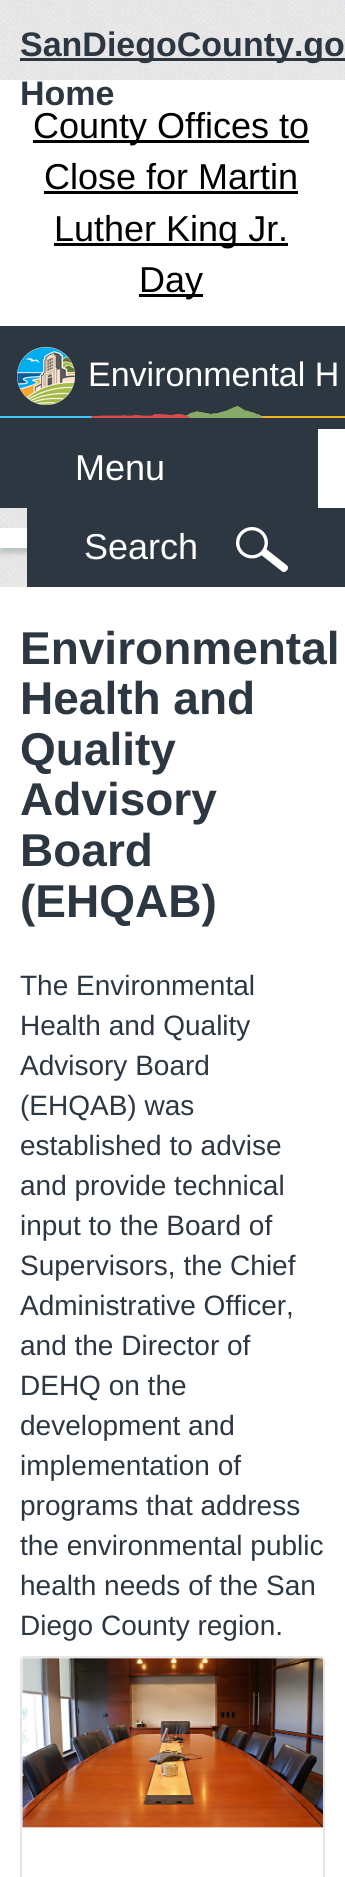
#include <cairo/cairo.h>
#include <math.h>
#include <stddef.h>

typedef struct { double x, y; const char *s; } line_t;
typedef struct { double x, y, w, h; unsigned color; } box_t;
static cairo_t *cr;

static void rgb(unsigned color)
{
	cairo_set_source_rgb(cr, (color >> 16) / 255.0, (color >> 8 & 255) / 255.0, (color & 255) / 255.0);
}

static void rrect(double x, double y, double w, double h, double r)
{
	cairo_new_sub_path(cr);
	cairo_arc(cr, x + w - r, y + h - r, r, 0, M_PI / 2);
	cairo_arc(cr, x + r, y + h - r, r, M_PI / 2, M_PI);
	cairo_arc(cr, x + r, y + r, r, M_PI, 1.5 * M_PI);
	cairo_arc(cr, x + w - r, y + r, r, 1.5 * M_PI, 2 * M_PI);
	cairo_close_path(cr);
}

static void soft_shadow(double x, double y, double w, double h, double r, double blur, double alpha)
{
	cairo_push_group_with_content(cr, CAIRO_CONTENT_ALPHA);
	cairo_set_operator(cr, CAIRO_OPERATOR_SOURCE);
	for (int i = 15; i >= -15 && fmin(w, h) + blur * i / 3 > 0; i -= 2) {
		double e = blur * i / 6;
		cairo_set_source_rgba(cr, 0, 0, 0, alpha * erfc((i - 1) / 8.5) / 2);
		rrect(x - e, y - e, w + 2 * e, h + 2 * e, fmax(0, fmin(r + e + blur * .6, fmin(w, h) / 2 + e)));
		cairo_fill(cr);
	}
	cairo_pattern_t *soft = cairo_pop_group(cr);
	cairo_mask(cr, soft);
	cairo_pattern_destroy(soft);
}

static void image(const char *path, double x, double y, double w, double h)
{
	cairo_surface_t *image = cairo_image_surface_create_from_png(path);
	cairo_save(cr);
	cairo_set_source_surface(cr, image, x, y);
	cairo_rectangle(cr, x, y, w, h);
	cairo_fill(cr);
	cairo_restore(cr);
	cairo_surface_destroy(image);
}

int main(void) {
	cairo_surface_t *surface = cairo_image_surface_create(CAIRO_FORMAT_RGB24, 345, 1877);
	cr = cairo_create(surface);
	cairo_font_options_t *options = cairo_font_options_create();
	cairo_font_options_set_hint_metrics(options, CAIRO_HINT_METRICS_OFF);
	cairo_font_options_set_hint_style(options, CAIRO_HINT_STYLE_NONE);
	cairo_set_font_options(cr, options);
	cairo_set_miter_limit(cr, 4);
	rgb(0xffffff);
	cairo_paint(cr);
	image("img/1.png", 0, 0, 345, 587);
	{
		static const box_t items[] = {
			{20, 58, 325, 3, 0x2d3742},
			{0, 326, 345, 103, 0x2d3742},
			{0, 80, 345, 246, 0xffffff},
			{33, 140, 276, 3, 0x000000},
			{44, 191, 254, 3, 0x000000},
			{54, 243, 234, 3, 0x000000},
			{139, 294, 64, 3, 0x000000},
		};
		for (size_t i = 0; i < sizeof items / sizeof *items; i++) {
			rgb(items[i].color);
			cairo_rectangle(cr, items[i].x, items[i].y, items[i].w, items[i].h);
			cairo_fill(cr);
		}
	}
	image("img/2.png", 17, 347, 58, 58);
	image("img/3.png", 0, 406, 345, 12);
	rgb(0xffffff);
	cairo_rectangle(cr, 318, 429, 27, 79);
	cairo_fill(cr);
	rgb(0x2d3742);
	cairo_rectangle(cr, 0, 429, 318, 79);
	cairo_fill(cr);
	rgb(0xb9c2bd);
	soft_shadow(0, 533, 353, 20, 0, 2.5, 1);
	rgb(0x2d3742);
	cairo_rectangle(cr, 27, 508, 318, 79);
	cairo_fill(cr);
	image("img/4.png", 236, 527, 52, 45);
	rgb(0xffffff);
	cairo_rectangle(cr, 0, 528, 27, 20);
	cairo_fill(cr);
	rrect(21, 1657, 303, 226, 4);
	rgb(0xe6e6e6);
	cairo_stroke(cr);
	image("img/5.png", 22, 1658, 301, 170);
	cairo_select_font_face(cr, "Liberation Sans", CAIRO_FONT_SLANT_NORMAL, CAIRO_FONT_WEIGHT_BOLD);
	cairo_set_font_size(cr, 34);
	rgb(0x2d3742);
	cairo_move_to(cr, 20, 56);
	cairo_show_text(cr, "SanDiegoCounty.go");
	cairo_move_to(cr, 20, 105);
	cairo_show_text(cr, "Home");
	cairo_select_font_face(cr, "Liberation Sans", CAIRO_FONT_SLANT_NORMAL, CAIRO_FONT_WEIGHT_NORMAL);
	cairo_set_font_size(cr, 36);
	rgb(0x000000);
	{
		static const line_t items[] = {
			{33, 138, "County Offices to"},
			{44, 189, "Close for Martin"},
			{54, 241, "Luther King Jr."},
			{139, 292, "Day"},
		};
		for (size_t i = 0; i < sizeof items / sizeof *items; i++) {
			cairo_move_to(cr, items[i].x, items[i].y);
			cairo_show_text(cr, items[i].s);
		}
	}
	cairo_set_font_size(cr, 34);
	rgb(0xffffff);
	cairo_move_to(cr, 88, 386);
	cairo_show_text(cr, "Environmental H");
	cairo_set_font_size(cr, 36);
	cairo_move_to(cr, 75, 480);
	cairo_show_text(cr, "Menu");
	cairo_move_to(cr, 84, 559);
	cairo_show_text(cr, "Search");
	cairo_select_font_face(cr, "Liberation Sans", CAIRO_FONT_SLANT_NORMAL, CAIRO_FONT_WEIGHT_BOLD);
	cairo_set_font_size(cr, 46);
	rgb(0x2d3742);
	{
		static const line_t items[] = {
			{20, 664, "Environmental"},
			{20, 714, "Health and"},
			{20, 765, "Quality"},
			{20, 815, "Advisory"},
			{20, 866, "Board"},
			{20, 917, "(EHQAB)"},
		};
		for (size_t i = 0; i < sizeof items / sizeof *items; i++) {
			cairo_move_to(cr, items[i].x, items[i].y);
			cairo_show_text(cr, items[i].s);
		}
	}
	cairo_select_font_face(cr, "Liberation Sans", CAIRO_FONT_SLANT_NORMAL, CAIRO_FONT_WEIGHT_NORMAL);
	cairo_set_font_size(cr, 28);
	{
		static const line_t items[] = {
			{20, 995, "The Environmental"},
			{20, 1035, "Health and Quality"},
			{20, 1075, "Advisory Board"},
			{20, 1115, "(EHQAB) was"},
			{20, 1155, "established to advise"},
			{20, 1195, "and provide technical"},
			{20, 1235, "input to the Board of"},
			{20, 1275, "Supervisors, the Chief"},
			{20, 1315, "Administrative Officer,"},
			{20, 1355, "and the Director of"},
			{20, 1395, "DEHQ on the"},
			{20, 1435, "development and"},
			{20, 1475, "implementation of"},
			{20, 1515, "programs that address"},
			{20, 1555, "the environmental public"},
			{20, 1595, "health needs of the San"},
			{20, 1635, "Diego County region."},
		};
		for (size_t i = 0; i < sizeof items / sizeof *items; i++) {
			cairo_move_to(cr, items[i].x, items[i].y);
			cairo_show_text(cr, items[i].s);
		}
	}
	cairo_surface_write_to_png(surface, "page.png");
	cairo_font_options_destroy(options);
	cairo_destroy(cr);
	cairo_surface_destroy(surface);
	return 0;
}
